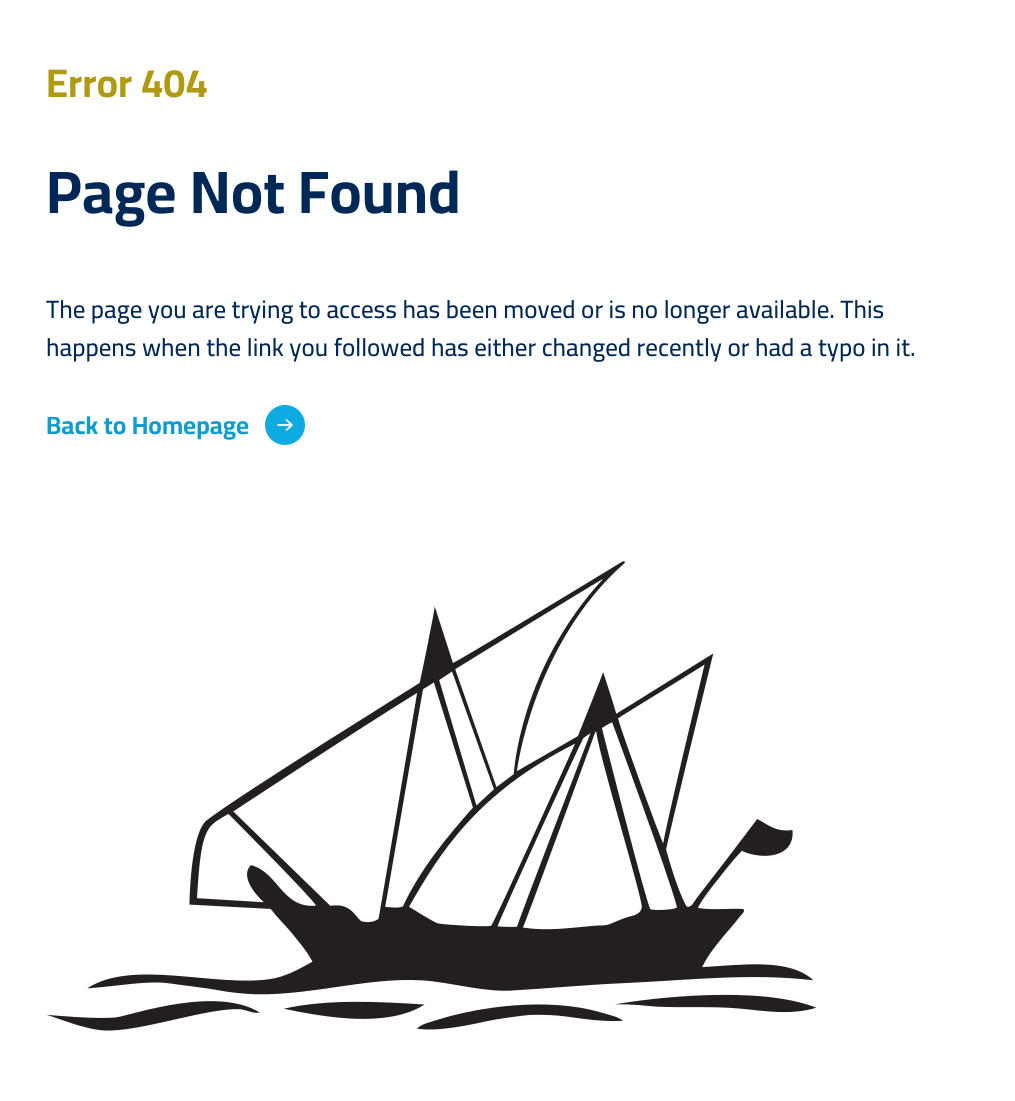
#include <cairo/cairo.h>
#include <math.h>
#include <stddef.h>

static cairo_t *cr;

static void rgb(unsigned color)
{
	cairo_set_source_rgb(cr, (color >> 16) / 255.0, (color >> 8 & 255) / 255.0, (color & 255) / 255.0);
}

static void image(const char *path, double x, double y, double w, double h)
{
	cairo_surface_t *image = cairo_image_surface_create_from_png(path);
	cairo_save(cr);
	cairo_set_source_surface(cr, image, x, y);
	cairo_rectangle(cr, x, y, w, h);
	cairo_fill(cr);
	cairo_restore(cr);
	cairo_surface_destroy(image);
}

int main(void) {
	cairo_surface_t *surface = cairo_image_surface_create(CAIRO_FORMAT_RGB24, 1015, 1101);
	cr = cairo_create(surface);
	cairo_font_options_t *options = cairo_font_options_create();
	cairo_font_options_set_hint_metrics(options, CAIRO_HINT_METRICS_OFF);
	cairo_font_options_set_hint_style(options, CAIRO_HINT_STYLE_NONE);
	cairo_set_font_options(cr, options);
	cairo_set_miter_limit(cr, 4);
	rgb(0xffffff);
	cairo_paint(cr);
	rgb(0x0dabe2);
	cairo_arc(cr, 285, 425, 20, 0, 2 * M_PI);
	cairo_fill(cr);
	cairo_new_path(cr);
	cairo_move_to(cr, 278, 425);
	cairo_line_to(cr, 292, 425);
	cairo_move_to(cr, 292, 425);
	cairo_line_to(cr, 286.5, 430);
	cairo_move_to(cr, 292, 425);
	cairo_line_to(cr, 286.5, 420);
	rgb(0xffffff);
	cairo_set_line_width(cr, 1.7);
	cairo_set_line_cap(cr, CAIRO_LINE_CAP_ROUND);
	cairo_set_line_join(cr, CAIRO_LINE_JOIN_ROUND);
	cairo_stroke(cr);
	image("img/1.png", 46, 561, 771, 470);
	cairo_select_font_face(cr, "Cairo", CAIRO_FONT_SLANT_NORMAL, CAIRO_FONT_WEIGHT_BOLD);
	cairo_set_font_size(cr, 40);
	rgb(0xb09913);
	cairo_move_to(cr, 46, 97);
	cairo_show_text(cr, "Error 404");
	cairo_set_font_size(cr, 60);
	rgb(0x002856);
	cairo_move_to(cr, 46, 213);
	cairo_show_text(cr, "Page Not Found");
	cairo_select_font_face(cr, "Cairo Medium", CAIRO_FONT_SLANT_NORMAL, CAIRO_FONT_WEIGHT_NORMAL);
	cairo_set_font_size(cr, 25);
	cairo_move_to(cr, 46, 318);
	cairo_show_text(cr, "The page you are trying to access has been moved or is no longer available. This");
	cairo_move_to(cr, 46, 356);
	cairo_show_text(cr, "happens when the link you followed has either changed recently or had a typo in it.");
	cairo_select_font_face(cr, "Cairo", CAIRO_FONT_SLANT_NORMAL, CAIRO_FONT_WEIGHT_BOLD);
	rgb(0x0c9cce);
	cairo_move_to(cr, 46, 434);
	cairo_show_text(cr, "Back to Homepage");
	cairo_surface_write_to_png(surface, "page.png");
	cairo_font_options_destroy(options);
	cairo_destroy(cr);
	cairo_surface_destroy(surface);
	return 0;
}
